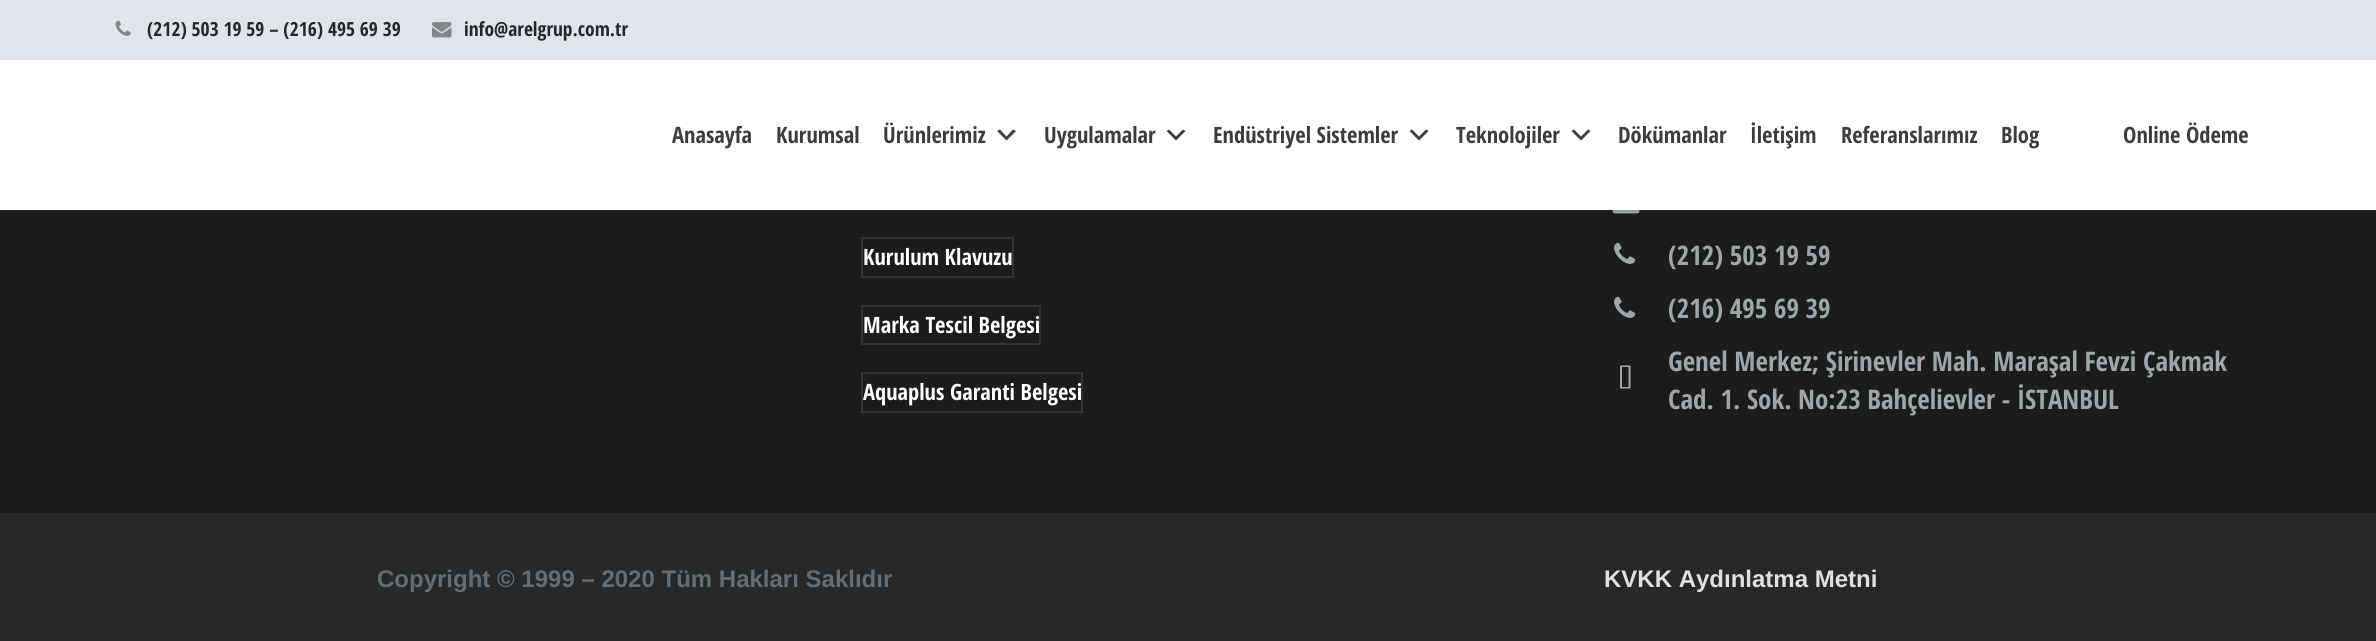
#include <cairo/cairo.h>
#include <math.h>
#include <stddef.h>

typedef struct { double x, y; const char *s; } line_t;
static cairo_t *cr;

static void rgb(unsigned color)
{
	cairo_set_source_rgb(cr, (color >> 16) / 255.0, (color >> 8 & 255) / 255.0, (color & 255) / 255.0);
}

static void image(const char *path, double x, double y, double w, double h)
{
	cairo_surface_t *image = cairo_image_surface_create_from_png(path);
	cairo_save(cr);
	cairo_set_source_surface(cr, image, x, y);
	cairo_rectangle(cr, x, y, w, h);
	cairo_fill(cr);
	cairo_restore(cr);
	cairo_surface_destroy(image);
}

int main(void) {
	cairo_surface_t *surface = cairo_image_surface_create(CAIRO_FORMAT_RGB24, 2376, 641);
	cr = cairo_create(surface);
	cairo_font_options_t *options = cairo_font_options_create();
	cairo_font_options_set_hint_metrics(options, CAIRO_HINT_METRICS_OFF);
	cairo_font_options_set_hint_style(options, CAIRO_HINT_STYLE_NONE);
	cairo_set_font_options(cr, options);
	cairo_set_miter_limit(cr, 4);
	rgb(0x1c1c1c);
	cairo_paint(cr);
	rgb(0xe1e4eb);
	cairo_rectangle(cr, 0, 0, 2376, 60);
	cairo_fill(cr);
	image("img/1.png", 115, 20, 16, 16);
	image("img/2.png", 432, 22, 20, 16);
	image("img/3.png", 1612, 210, 28, 4);
	cairo_set_source_rgba(cr, 0, 0, 0, 0.08);
	cairo_rectangle(cr, 1612, 210, 28, 2);
	cairo_fill(cr);
	rgb(0xffffff);
	cairo_rectangle(cr, 0, 60, 2376, 150);
	cairo_fill(cr);
	rgb(0x3b3d40);
	cairo_new_path(cr);
	cairo_move_to(cr, 1000, 129.5);
	cairo_line_to(cr, 1006.5, 136.5);
	cairo_line_to(cr, 1013, 129.5);
	cairo_line_to(cr, 1016, 131);
	cairo_line_to(cr, 1006.5, 140.5);
	cairo_line_to(cr, 997, 131);
	cairo_close_path(cr);
	cairo_fill(cr);
	cairo_new_path(cr);
	cairo_move_to(cr, 1169, 129.5);
	cairo_line_to(cr, 1176, 136.5);
	cairo_line_to(cr, 1183, 129.5);
	cairo_line_to(cr, 1185.5, 131);
	cairo_line_to(cr, 1176, 140.5);
	cairo_line_to(cr, 1166.5, 131);
	cairo_close_path(cr);
	cairo_fill(cr);
	cairo_new_path(cr);
	cairo_move_to(cr, 1412, 129.5);
	cairo_line_to(cr, 1419, 136.5);
	cairo_line_to(cr, 1426, 129.5);
	cairo_line_to(cr, 1428.5, 131);
	cairo_line_to(cr, 1419, 140.5);
	cairo_line_to(cr, 1409.5, 131);
	cairo_close_path(cr);
	cairo_fill(cr);
	cairo_new_path(cr);
	cairo_move_to(cr, 1574, 129.5);
	cairo_line_to(cr, 1581, 136.5);
	cairo_line_to(cr, 1588, 129.5);
	cairo_line_to(cr, 1590.5, 131);
	cairo_line_to(cr, 1581, 140.5);
	cairo_line_to(cr, 1571.5, 131);
	cairo_close_path(cr);
	cairo_fill(cr);
	cairo_rectangle(cr, 862, 238, 151, 39);
	rgb(0x333333);
	cairo_stroke(cr);
	cairo_rectangle(cr, 862, 373, 220, 39);
	cairo_stroke(cr);
	image("img/4.png", 1614, 242, 22, 22);
	image("img/4.png", 1614, 296, 22, 22);
	rgb(0x9da6a8);
	cairo_new_path(cr);
	cairo_move_to(cr, 1622, 387);
	cairo_line_to(cr, 1622, 367);
	cairo_line_to(cr, 1628.5, 367);
	cairo_line_to(cr, 1628.5, 387);
	cairo_close_path(cr);
	cairo_move_to(cr, 1620, 388.5);
	cairo_line_to(cr, 1630.5, 388.5);
	cairo_line_to(cr, 1630.5, 365.5);
	cairo_line_to(cr, 1620, 365.5);
	cairo_close_path(cr);
	cairo_fill(cr);
	rgb(0x27282a);
	cairo_rectangle(cr, 0, 513, 2376, 128);
	cairo_fill(cr);
	cairo_select_font_face(cr, "Open Sans Condensed", CAIRO_FONT_SLANT_NORMAL, CAIRO_FONT_WEIGHT_BOLD);
	cairo_set_font_size(cr, 19.5);
	rgb(0x252829);
	cairo_move_to(cr, 147, 36);
	cairo_show_text(cr, "(212) 503 19 59 – (216) 495 69 39");
	cairo_move_to(cr, 464, 36);
	cairo_show_text(cr, "info@arelgrup.com.tr");
	cairo_set_font_size(cr, 22.5);
	rgb(0x3b3d40);
	{
		static const line_t items[] = {
			{672, 143, "Anasayfa"},
			{776, 143, "Kurumsal"},
			{883, 143, "Ürünlerimiz"},
			{1044, 143, "Uygulamalar"},
			{1213, 143, "Endüstriyel Sistemler"},
			{1456, 143, "Teknolojiler"},
			{1618, 143, "Dökümanlar"},
			{1750, 143, "İletişim"},
			{1841, 143, "Referanslarımız"},
			{2001, 143, "Blog"},
			{2123, 143, "Online Ödeme"},
		};
		for (size_t i = 0; i < sizeof items / sizeof *items; i++) {
			cairo_move_to(cr, items[i].x, items[i].y);
			cairo_show_text(cr, items[i].s);
		}
	}
	rgb(0xffffff);
	cairo_move_to(cr, 863, 265);
	cairo_show_text(cr, "Kurulum Klavuzu");
	cairo_move_to(cr, 863, 333);
	cairo_show_text(cr, "Marka Tescil Belgesi");
	cairo_rectangle(cr, 862, 306, 178, 38);
	rgb(0x333333);
	cairo_stroke(cr);
	rgb(0xffffff);
	cairo_move_to(cr, 863, 400);
	cairo_show_text(cr, "Aquaplus Garanti Belgesi");
	cairo_set_font_size(cr, 27);
	rgb(0x9da6a8);
	{
		static const line_t items[] = {
			{1668, 265, "(212) 503 19 59"},
			{1668, 318, "(216) 495 69 39"},
			{1668, 371, "Genel Merkez; Şirinevler Mah. Maraşal Fevzi Çakmak"},
			{1668, 409, "Cad. 1. Sok. No:23 Bahçelievler - İSTANBUL"},
		};
		for (size_t i = 0; i < sizeof items / sizeof *items; i++) {
			cairo_move_to(cr, items[i].x, items[i].y);
			cairo_show_text(cr, items[i].s);
		}
	}
	cairo_select_font_face(cr, "Liberation Sans", CAIRO_FONT_SLANT_NORMAL, CAIRO_FONT_WEIGHT_BOLD);
	cairo_set_font_size(cr, 24);
	rgb(0x666d70);
	cairo_move_to(cr, 377, 587);
	cairo_show_text(cr, "Copyright © 1999 – 2020 Tüm Hakları Saklıdır");
	rgb(0xe0e0e0);
	cairo_move_to(cr, 1604, 587);
	cairo_show_text(cr, "KVKK Aydınlatma Metni");
	cairo_surface_write_to_png(surface, "page.png");
	cairo_font_options_destroy(options);
	cairo_destroy(cr);
	cairo_surface_destroy(surface);
	return 0;
}
